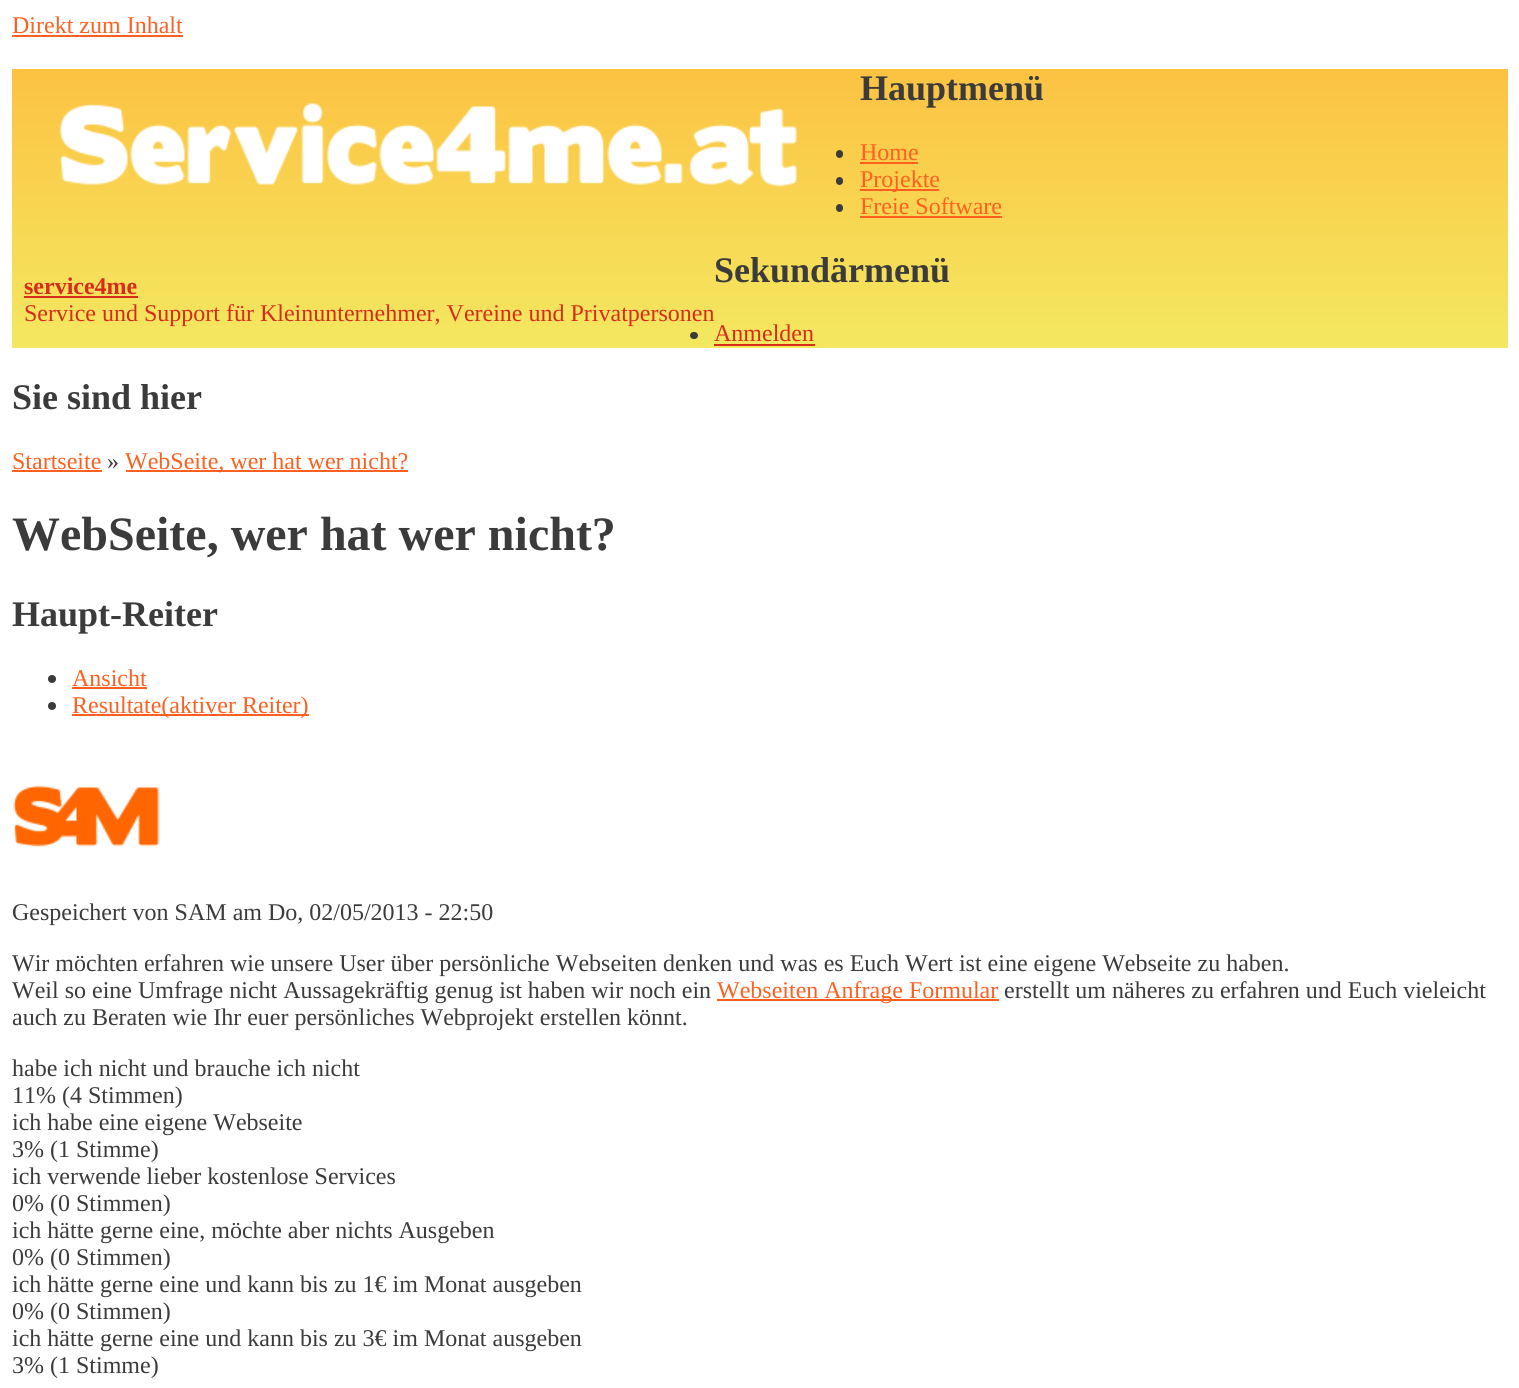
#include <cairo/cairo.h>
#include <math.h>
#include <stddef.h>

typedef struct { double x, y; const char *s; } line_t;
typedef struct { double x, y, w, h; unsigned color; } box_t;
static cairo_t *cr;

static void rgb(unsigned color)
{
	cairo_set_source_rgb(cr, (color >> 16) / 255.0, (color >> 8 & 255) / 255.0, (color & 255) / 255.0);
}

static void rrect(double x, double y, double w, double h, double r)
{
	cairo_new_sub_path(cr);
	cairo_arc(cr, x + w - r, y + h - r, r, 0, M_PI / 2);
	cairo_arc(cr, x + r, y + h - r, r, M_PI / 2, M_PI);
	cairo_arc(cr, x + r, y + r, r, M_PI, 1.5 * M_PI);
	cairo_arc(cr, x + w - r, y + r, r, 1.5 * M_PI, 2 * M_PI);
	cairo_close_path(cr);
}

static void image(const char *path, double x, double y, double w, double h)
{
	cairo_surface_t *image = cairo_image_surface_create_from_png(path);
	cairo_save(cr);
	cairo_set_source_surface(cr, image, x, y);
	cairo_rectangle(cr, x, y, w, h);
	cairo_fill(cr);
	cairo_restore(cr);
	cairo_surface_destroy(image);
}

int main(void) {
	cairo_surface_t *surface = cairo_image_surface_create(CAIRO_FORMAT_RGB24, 1519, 1388);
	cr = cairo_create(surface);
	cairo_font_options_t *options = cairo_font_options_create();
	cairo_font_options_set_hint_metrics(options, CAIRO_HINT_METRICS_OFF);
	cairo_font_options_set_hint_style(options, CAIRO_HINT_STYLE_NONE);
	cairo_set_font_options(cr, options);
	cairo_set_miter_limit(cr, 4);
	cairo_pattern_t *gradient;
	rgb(0xffffff);
	cairo_paint(cr);
	rgb(0xff6020);
	cairo_rectangle(cr, 12, 35, 171, 2);
	cairo_fill(cr);
	gradient = cairo_pattern_create_linear(760, 69, 760, 348);
	cairo_pattern_add_color_stop_rgba(gradient, 0, 0.988, 0.761, 0.259, 1);
	cairo_pattern_add_color_stop_rgba(gradient, 1, 0.957, 0.91, 0.38, 1);
	cairo_set_source(cr, gradient);
	cairo_pattern_destroy(gradient);
	cairo_rectangle(cr, 12, 69, 1496, 279);
	cairo_fill(cr);
	image("img/1.png", 59, 103, 738, 84);
	rgb(0x3b3b3b);
	rrect(836, 150, 7, 8, 3.5);
	cairo_fill(cr);
	rgb(0xff6020);
	cairo_rectangle(cr, 860, 162, 58, 2);
	cairo_fill(cr);
	rgb(0x3b3b3b);
	rrect(836, 177, 7, 8, 3.5);
	cairo_fill(cr);
	rgb(0xff6020);
	cairo_rectangle(cr, 860, 189, 79, 2);
	cairo_fill(cr);
	rgb(0x3b3b3b);
	rrect(836, 204, 7, 8, 3.5);
	cairo_fill(cr);
	rgb(0xff6020);
	cairo_rectangle(cr, 860, 216, 142, 2);
	cairo_fill(cr);
	rgb(0xd72c1c);
	cairo_rectangle(cr, 24, 296, 114, 2);
	cairo_fill(cr);
	rgb(0x3b3b3b);
	rrect(690, 332, 8, 7, 3.5);
	cairo_fill(cr);
	{
		static const box_t items[] = {
			{714, 344, 101, 2, 0xd72c1c},
			{12, 470, 90, 2, 0xff6020},
			{126, 470, 282, 2, 0xff6020},
		};
		for (size_t i = 0; i < sizeof items / sizeof *items; i++) {
			rgb(items[i].color);
			cairo_rectangle(cr, items[i].x, items[i].y, items[i].w, items[i].h);
			cairo_fill(cr);
		}
	}
	rgb(0x3b3b3b);
	cairo_arc(cr, 52, 679, 4, 0, 2 * M_PI);
	cairo_fill(cr);
	rgb(0xff6020);
	cairo_rectangle(cr, 72, 687, 75, 2);
	cairo_fill(cr);
	rgb(0x3b3b3b);
	cairo_arc(cr, 52, 706, 4, 0, 2 * M_PI);
	cairo_fill(cr);
	rgb(0xff6020);
	cairo_rectangle(cr, 72, 714, 237, 2);
	cairo_fill(cr);
	image("img/2.png", 13, 785, 147, 62);
	cairo_rectangle(cr, 717, 999, 282, 2);
	cairo_fill(cr);
	cairo_select_font_face(cr, "Liberation Serif", CAIRO_FONT_SLANT_NORMAL, CAIRO_FONT_WEIGHT_NORMAL);
	cairo_set_font_size(cr, 24);
	cairo_move_to(cr, 12, 33);
	cairo_show_text(cr, "Direkt zum Inhalt");
	cairo_select_font_face(cr, "Liberation Serif", CAIRO_FONT_SLANT_NORMAL, CAIRO_FONT_WEIGHT_BOLD);
	cairo_set_font_size(cr, 36);
	rgb(0x3b3b3b);
	cairo_move_to(cr, 860, 100);
	cairo_show_text(cr, "Hauptmenü");
	cairo_select_font_face(cr, "Liberation Serif", CAIRO_FONT_SLANT_NORMAL, CAIRO_FONT_WEIGHT_NORMAL);
	cairo_set_font_size(cr, 24);
	rgb(0xff6020);
	{
		static const line_t items[] = {
			{860, 160, "Home"},
			{860, 187, "Projekte"},
			{860, 214, "Freie Software"},
		};
		for (size_t i = 0; i < sizeof items / sizeof *items; i++) {
			cairo_move_to(cr, items[i].x, items[i].y);
			cairo_show_text(cr, items[i].s);
		}
	}
	cairo_select_font_face(cr, "Liberation Serif", CAIRO_FONT_SLANT_NORMAL, CAIRO_FONT_WEIGHT_BOLD);
	rgb(0xd72c1c);
	cairo_move_to(cr, 24, 294);
	cairo_show_text(cr, "service4me");
	cairo_select_font_face(cr, "Liberation Serif", CAIRO_FONT_SLANT_NORMAL, CAIRO_FONT_WEIGHT_NORMAL);
	cairo_move_to(cr, 24, 321);
	cairo_show_text(cr, "Service und Support für Kleinunternehmer, Vereine und Privatpersonen");
	cairo_select_font_face(cr, "Liberation Serif", CAIRO_FONT_SLANT_NORMAL, CAIRO_FONT_WEIGHT_BOLD);
	cairo_set_font_size(cr, 36);
	rgb(0x3b3b3b);
	cairo_move_to(cr, 714, 282);
	cairo_show_text(cr, "Sekundärmenü");
	cairo_select_font_face(cr, "Liberation Serif", CAIRO_FONT_SLANT_NORMAL, CAIRO_FONT_WEIGHT_NORMAL);
	cairo_set_font_size(cr, 24);
	rgb(0xd72c1c);
	cairo_move_to(cr, 714, 341);
	cairo_show_text(cr, "Anmelden");
	cairo_select_font_face(cr, "Liberation Serif", CAIRO_FONT_SLANT_NORMAL, CAIRO_FONT_WEIGHT_BOLD);
	cairo_set_font_size(cr, 36);
	rgb(0x3b3b3b);
	cairo_move_to(cr, 12, 409);
	cairo_show_text(cr, "Sie sind hier");
	cairo_select_font_face(cr, "Liberation Serif", CAIRO_FONT_SLANT_NORMAL, CAIRO_FONT_WEIGHT_NORMAL);
	cairo_set_font_size(cr, 24);
	rgb(0xff6020);
	cairo_move_to(cr, 12, 469);
	cairo_show_text(cr, "Startseite");
	rgb(0x3b3b3b);
	cairo_move_to(cr, 107, 469);
	cairo_show_text(cr, "»");
	rgb(0xff6020);
	cairo_move_to(cr, 125, 469);
	cairo_show_text(cr, "WebSeite, wer hat wer nicht?");
	cairo_select_font_face(cr, "Liberation Serif", CAIRO_FONT_SLANT_NORMAL, CAIRO_FONT_WEIGHT_BOLD);
	cairo_set_font_size(cr, 48);
	rgb(0x3b3b3b);
	cairo_move_to(cr, 12, 550);
	cairo_show_text(cr, "WebSeite, wer hat wer nicht?");
	cairo_set_font_size(cr, 36);
	cairo_move_to(cr, 12, 626);
	cairo_show_text(cr, "Haupt-Reiter");
	cairo_select_font_face(cr, "Liberation Serif", CAIRO_FONT_SLANT_NORMAL, CAIRO_FONT_WEIGHT_NORMAL);
	cairo_set_font_size(cr, 24);
	rgb(0xff6020);
	cairo_move_to(cr, 72, 686);
	cairo_show_text(cr, "Ansicht");
	cairo_move_to(cr, 72, 713);
	cairo_show_text(cr, "Resultate(aktiver Reiter)");
	rgb(0x3b3b3b);
	{
		static const line_t items[] = {
			{12, 920, "Gespeichert von SAM am Do, 02/05/2013 - 22:50"},
			{12, 971, "Wir möchten erfahren wie unsere User über persönliche Webseiten denken und was es Euch Wert ist eine eigene Webseite zu haben."},
			{12, 998, "Weil so eine Umfrage nicht Aussagekräftig genug ist haben wir noch ein"},
		};
		for (size_t i = 0; i < sizeof items / sizeof *items; i++) {
			cairo_move_to(cr, items[i].x, items[i].y);
			cairo_show_text(cr, items[i].s);
		}
	}
	rgb(0xff6020);
	cairo_move_to(cr, 717, 998);
	cairo_show_text(cr, "Webseiten Anfrage Formular");
	rgb(0x3b3b3b);
	{
		static const line_t items[] = {
			{1004, 998, "erstellt um näheres zu erfahren und Euch vieleicht"},
			{12, 1025, "auch zu Beraten wie Ihr euer persönliches Webprojekt erstellen könnt."},
			{12, 1076, "habe ich nicht und brauche ich nicht"},
			{12, 1103, "11% (4 Stimmen)"},
			{12, 1130, "ich habe eine eigene Webseite"},
			{12, 1157, "3% (1 Stimme)"},
			{12, 1184, "ich verwende lieber kostenlose Services"},
			{12, 1211, "0% (0 Stimmen)"},
			{12, 1238, "ich hätte gerne eine, möchte aber nichts Ausgeben"},
			{12, 1265, "0% (0 Stimmen)"},
			{12, 1292, "ich hätte gerne eine und kann bis zu 1€ im Monat ausgeben"},
			{12, 1319, "0% (0 Stimmen)"},
			{12, 1346, "ich hätte gerne eine und kann bis zu 3€ im Monat ausgeben"},
			{12, 1373, "3% (1 Stimme)"},
		};
		for (size_t i = 0; i < sizeof items / sizeof *items; i++) {
			cairo_move_to(cr, items[i].x, items[i].y);
			cairo_show_text(cr, items[i].s);
		}
	}
	cairo_surface_write_to_png(surface, "page.png");
	cairo_font_options_destroy(options);
	cairo_destroy(cr);
	cairo_surface_destroy(surface);
	return 0;
}
